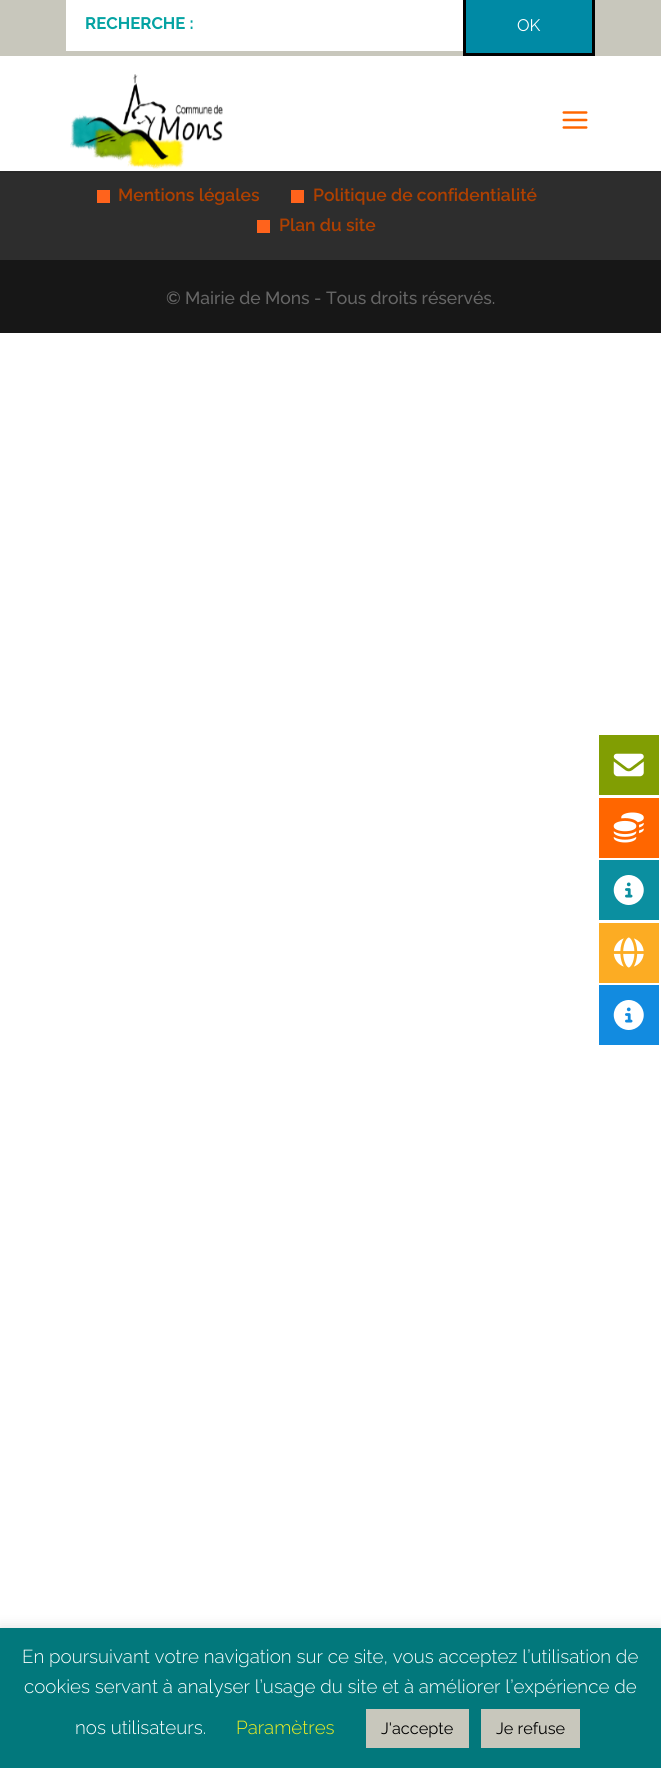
#include <cairo/cairo.h>
#include <math.h>
#include <stddef.h>

typedef struct { double x, y; const char *s; } line_t;
typedef struct { double x, y, w, h; unsigned color; } box_t;
static cairo_t *cr;

static void rgb(unsigned color)
{
	cairo_set_source_rgb(cr, (color >> 16) / 255.0, (color >> 8 & 255) / 255.0, (color & 255) / 255.0);
}

static void rrect(double x, double y, double w, double h, double r)
{
	cairo_new_sub_path(cr);
	cairo_arc(cr, x + w - r, y + h - r, r, 0, M_PI / 2);
	cairo_arc(cr, x + r, y + h - r, r, M_PI / 2, M_PI);
	cairo_arc(cr, x + r, y + r, r, M_PI, 1.5 * M_PI);
	cairo_arc(cr, x + w - r, y + r, r, 1.5 * M_PI, 2 * M_PI);
	cairo_close_path(cr);
}

static void soft_shadow(double x, double y, double w, double h, double r, double blur, double alpha)
{
	cairo_push_group_with_content(cr, CAIRO_CONTENT_ALPHA);
	cairo_set_operator(cr, CAIRO_OPERATOR_SOURCE);
	for (int i = 15; i >= -15 && fmin(w, h) + blur * i / 3 > 0; i -= 2) {
		double e = blur * i / 6;
		cairo_set_source_rgba(cr, 0, 0, 0, alpha * erfc((i - 1) / 8.5) / 2);
		rrect(x - e, y - e, w + 2 * e, h + 2 * e, fmax(0, fmin(r + e + blur * .6, fmin(w, h) / 2 + e)));
		cairo_fill(cr);
	}
	cairo_pattern_t *soft = cairo_pop_group(cr);
	cairo_mask(cr, soft);
	cairo_pattern_destroy(soft);
}

static void image(const char *path, double x, double y, double w, double h)
{
	cairo_surface_t *image = cairo_image_surface_create_from_png(path);
	cairo_save(cr);
	cairo_set_source_surface(cr, image, x, y);
	cairo_rectangle(cr, x, y, w, h);
	cairo_fill(cr);
	cairo_restore(cr);
	cairo_surface_destroy(image);
}

int main(void) {
	cairo_surface_t *surface = cairo_image_surface_create(CAIRO_FORMAT_RGB24, 661, 1768);
	cr = cairo_create(surface);
	cairo_font_options_t *options = cairo_font_options_create();
	cairo_font_options_set_hint_metrics(options, CAIRO_HINT_METRICS_OFF);
	cairo_font_options_set_hint_style(options, CAIRO_HINT_STYLE_NONE);
	cairo_set_font_options(cr, options);
	cairo_set_miter_limit(cr, 4);
	rgb(0xffffff);
	cairo_paint(cr);
	rgb(0xc8c7bc);
	cairo_rectangle(cr, 0, 0, 661, 56);
	cairo_fill(cr);
	rgb(0xffffff);
	cairo_rectangle(cr, 66, 0, 397, 51);
	cairo_fill(cr);
	rgb(0x008aa5);
	cairo_rectangle(cr, 464.5, -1.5, 129, 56);
	cairo_fill_preserve(cr);
	rgb(0x000000);
	cairo_set_line_width(cr, 3);
	cairo_stroke(cr);
	rgb(0x292929);
	cairo_rectangle(cr, 0, 171, 661, 2);
	cairo_fill(cr);
	image("img/1.png", 70, 74, 153, 95);
	image("img/2.png", 562, 111, 26, 18);
	{
		static const box_t items[] = {
			{0, 173, 661, 87, 0x2d2d2d},
			{97, 190, 13, 13, 0xff631c},
			{291, 190, 13, 13, 0xff631c},
			{257, 220, 13, 13, 0xff631c},
			{0, 260, 661, 73, 0x171717},
			{599, 735, 60, 60, 0x819e03},
		};
		for (size_t i = 0; i < sizeof items / sizeof *items; i++) {
			rgb(items[i].color);
			cairo_rectangle(cr, items[i].x, items[i].y, items[i].w, items[i].h);
			cairo_fill(cr);
		}
	}
	image("img/3.png", 613, 753, 31, 24);
	rgb(0xff6600);
	cairo_rectangle(cr, 599, 798, 60, 60);
	cairo_fill(cr);
	image("img/4.png", 613, 812, 31, 31);
	rgb(0x0b8fa0);
	cairo_rectangle(cr, 599, 860, 60, 60);
	cairo_fill(cr);
	image("img/5.png", 613, 875, 31, 30);
	rgb(0xfcac23);
	cairo_rectangle(cr, 599, 923, 60, 60);
	cairo_fill(cr);
	image("img/6.png", 613, 937, 31, 31);
	rgb(0x128be0);
	cairo_rectangle(cr, 599, 985, 60, 60);
	cairo_fill(cr);
	image("img/7.png", 613, 1000, 31, 30);
	rgb(0xacabab);
	soft_shadow(0, 1626, 661, 142, 0, 6, 0.3);
	{
		static const box_t items[] = {
			{0, 1628, 661, 140, 0x02787c},
			{366, 1709, 103, 39, 0xc8c7bc},
			{481, 1709, 99, 39, 0xc8c7bc},
		};
		for (size_t i = 0; i < sizeof items / sizeof *items; i++) {
			rgb(items[i].color);
			cairo_rectangle(cr, items[i].x, items[i].y, items[i].w, items[i].h);
			cairo_fill(cr);
		}
	}
	cairo_select_font_face(cr, "Raleway", CAIRO_FONT_SLANT_NORMAL, CAIRO_FONT_WEIGHT_BOLD);
	cairo_set_font_size(cr, 16.75);
	rgb(0x04a3a3);
	cairo_move_to(cr, 85, 29);
	cairo_show_text(cr, "RECHERCHE :");
	cairo_select_font_face(cr, "Raleway", CAIRO_FONT_SLANT_NORMAL, CAIRO_FONT_WEIGHT_NORMAL);
	rgb(0xffffff);
	cairo_move_to(cr, 517, 31);
	cairo_show_text(cr, "OK");
	cairo_select_font_face(cr, "Raleway SemiBold", CAIRO_FONT_SLANT_NORMAL, CAIRO_FONT_WEIGHT_NORMAL);
	cairo_set_font_size(cr, 17.5);
	rgb(0xaf4000);
	{
		static const line_t items[] = {
			{118, 201, "Mentions légales"},
			{313, 201, "Politique de confidentialité"},
			{279, 231, "Plan du site"},
		};
		for (size_t i = 0; i < sizeof items / sizeof *items; i++) {
			cairo_move_to(cr, items[i].x, items[i].y);
			cairo_show_text(cr, items[i].s);
		}
	}
	cairo_select_font_face(cr, "Raleway Medium", CAIRO_FONT_SLANT_NORMAL, CAIRO_FONT_WEIGHT_NORMAL);
	rgb(0x666666);
	cairo_move_to(cr, 166, 304);
	cairo_show_text(cr, "© Mairie de Mons - Tous droits réservés.");
	cairo_select_font_face(cr, "Raleway Light", CAIRO_FONT_SLANT_NORMAL, CAIRO_FONT_WEIGHT_NORMAL);
	cairo_set_font_size(cr, 18.75);
	rgb(0xffffff);
	{
		static const line_t items[] = {
			{22, 1663, "En poursuivant votre navigation sur ce site, vous acceptez l’utilisation de"},
			{24, 1693, "cookies servant à analyser l’usage du site et à améliorer l’expérience de"},
			{75, 1734, "nos utilisateurs."},
		};
		for (size_t i = 0; i < sizeof items / sizeof *items; i++) {
			cairo_move_to(cr, items[i].x, items[i].y);
			cairo_show_text(cr, items[i].s);
		}
	}
	rgb(0xeeee22);
	cairo_move_to(cr, 236, 1734);
	cairo_show_text(cr, "Paramètres");
	cairo_select_font_face(cr, "Raleway", CAIRO_FONT_SLANT_NORMAL, CAIRO_FONT_WEIGHT_NORMAL);
	cairo_set_font_size(cr, 16.25);
	rgb(0x020202);
	cairo_move_to(cr, 381, 1734);
	cairo_show_text(cr, "J'accepte");
	cairo_move_to(cr, 496, 1734);
	cairo_show_text(cr, "Je refuse");
	cairo_surface_write_to_png(surface, "page.png");
	cairo_font_options_destroy(options);
	cairo_destroy(cr);
	cairo_surface_destroy(surface);
	return 0;
}
